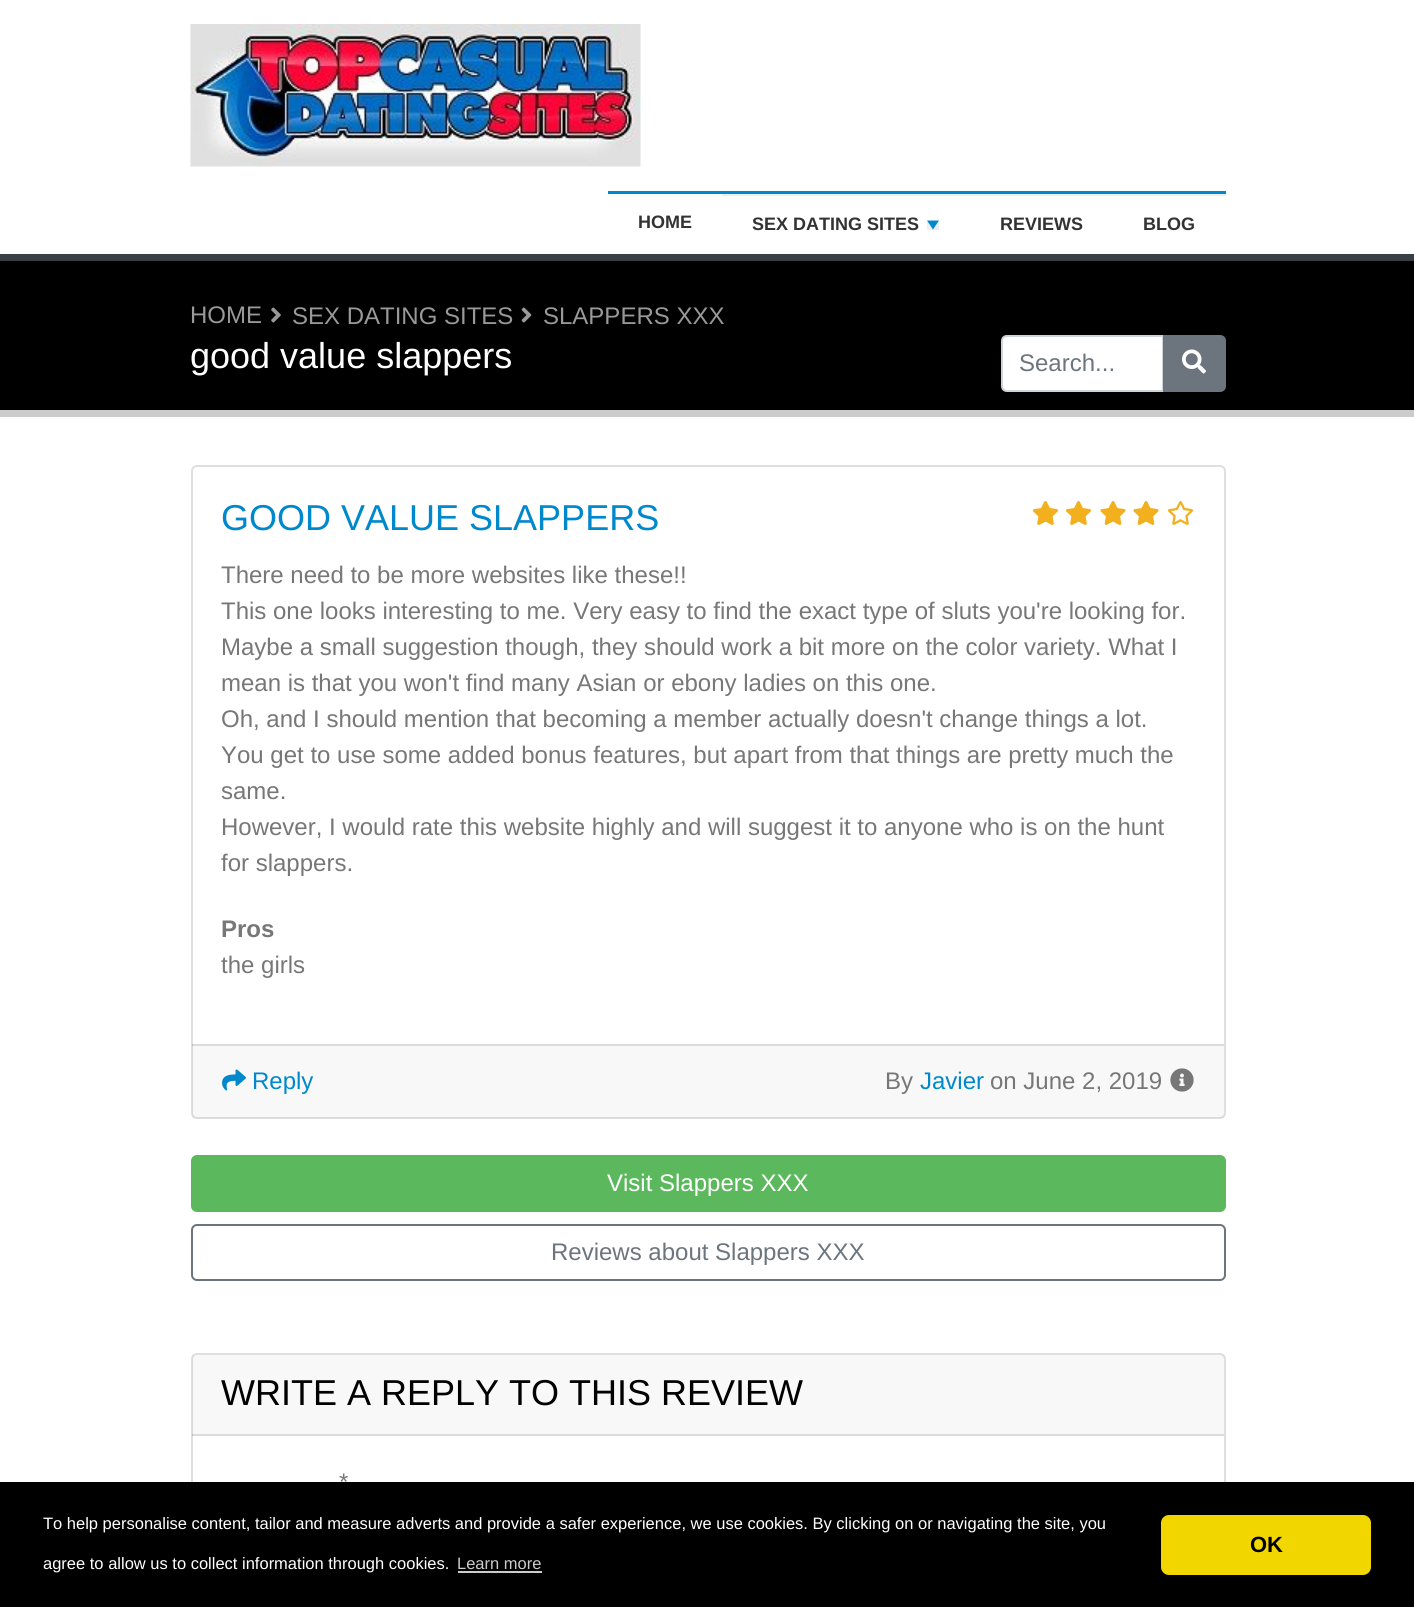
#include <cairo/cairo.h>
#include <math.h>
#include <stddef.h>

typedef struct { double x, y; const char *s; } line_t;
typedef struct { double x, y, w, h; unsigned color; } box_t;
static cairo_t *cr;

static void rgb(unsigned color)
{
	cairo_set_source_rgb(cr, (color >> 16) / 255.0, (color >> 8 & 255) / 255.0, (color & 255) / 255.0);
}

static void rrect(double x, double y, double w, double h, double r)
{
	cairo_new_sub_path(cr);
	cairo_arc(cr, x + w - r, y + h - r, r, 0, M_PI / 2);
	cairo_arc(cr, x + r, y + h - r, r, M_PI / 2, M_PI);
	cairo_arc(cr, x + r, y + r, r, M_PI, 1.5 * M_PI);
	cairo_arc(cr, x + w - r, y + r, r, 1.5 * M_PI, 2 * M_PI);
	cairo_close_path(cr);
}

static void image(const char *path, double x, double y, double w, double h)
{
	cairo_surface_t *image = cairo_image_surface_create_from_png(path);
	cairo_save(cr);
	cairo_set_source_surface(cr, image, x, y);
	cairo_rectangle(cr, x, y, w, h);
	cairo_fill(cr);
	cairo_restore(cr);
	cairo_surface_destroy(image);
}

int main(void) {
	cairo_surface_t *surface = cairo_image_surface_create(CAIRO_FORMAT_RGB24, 1414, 1607);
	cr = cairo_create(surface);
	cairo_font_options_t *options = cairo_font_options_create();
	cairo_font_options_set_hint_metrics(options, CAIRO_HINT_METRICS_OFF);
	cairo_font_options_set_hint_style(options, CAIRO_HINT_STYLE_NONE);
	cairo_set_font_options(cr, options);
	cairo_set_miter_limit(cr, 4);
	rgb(0xffffff);
	cairo_paint(cr);
	image("img/1.png", 190, 24, 451, 143);
	{
		static const box_t items[] = {
			{608, 191, 618, 3, 0x0088cc},
			{722, 194, 504, 2, 0xeeeeee},
			{927, 221, 12, 9, 0xeeeeee},
		};
		for (size_t i = 0; i < sizeof items / sizeof *items; i++) {
			rgb(items[i].color);
			cairo_rectangle(cr, items[i].x, items[i].y, items[i].w, items[i].h);
			cairo_fill(cr);
		}
	}
	rgb(0x0088cc);
	cairo_new_path(cr);
	cairo_move_to(cr, 927, 220.5);
	cairo_line_to(cr, 939, 220.5);
	cairo_line_to(cr, 933, 229.5);
	cairo_close_path(cr);
	cairo_fill(cr);
	{
		static const box_t items[] = {
			{0, 261, 1414, 149, 0x000000},
			{0, 254, 1414, 7, 0x384045},
			{0, 410, 1414, 7, 0xcccccc},
		};
		for (size_t i = 0; i < sizeof items / sizeof *items; i++) {
			rgb(items[i].color);
			cairo_rectangle(cr, items[i].x, items[i].y, items[i].w, items[i].h);
			cairo_fill(cr);
		}
	}
	image("img/2.png", 271, 307, 10, 16);
	image("img/3.png", 521, 307, 11, 16);
	rgb(0xffffff);
	cairo_new_path(cr);
	cairo_move_to(cr, 1007, 336);
	cairo_line_to(cr, 1163, 336);
	cairo_line_to(cr, 1163, 391);
	cairo_line_to(cr, 1007, 391);
	cairo_curve_to(cr, 1004, 391, 1002, 389, 1002, 386);
	cairo_line_to(cr, 1002, 341);
	cairo_curve_to(cr, 1002, 338, 1004, 336, 1007, 336);
	cairo_close_path(cr);
	cairo_fill_preserve(cr);
	rgb(0xced4da);
	cairo_stroke(cr);
	rgb(0x6c757d);
	cairo_new_path(cr);
	cairo_move_to(cr, 1164, 336);
	cairo_line_to(cr, 1220, 336);
	cairo_curve_to(cr, 1223, 336, 1225, 338, 1225, 341);
	cairo_line_to(cr, 1225, 386);
	cairo_curve_to(cr, 1225, 389, 1223, 391, 1220, 391);
	cairo_line_to(cr, 1164, 391);
	cairo_close_path(cr);
	cairo_fill_preserve(cr);
	cairo_stroke(cr);
	image("img/4.png", 1182, 349, 24, 25);
	rrect(192, 466, 1033, 652, 5);
	rgb(0xdfdfdf);
	cairo_stroke(cr);
	image("img/5.png", 1033, 501, 25, 24);
	image("img/5.png", 1066, 501, 25, 24);
	image("img/6.png", 1100, 501, 26, 24);
	image("img/6.png", 1133, 501, 26, 24);
	image("img/7.png", 1168, 501, 25, 24);
	cairo_set_source_rgba(cr, 0, 0, 0, 0.03);
	cairo_rectangle(cr, 192, 1044, 1032, 74);
	cairo_fill(cr);
	cairo_set_source_rgba(cr, 0, 0, 0, 0.12);
	cairo_rectangle(cr, 192, 1044, 1032, 2);
	cairo_fill(cr);
	image("img/8.png", 222, 1069, 24, 22);
	image("img/9.png", 1170, 1068, 24, 24);
	rgb(0x5cb85c);
	rrect(192, 1156, 1033, 55, 5);
	cairo_fill_preserve(cr);
	cairo_stroke(cr);
	rrect(192, 1225, 1033, 55, 5);
	rgb(0x6c757d);
	cairo_stroke(cr);
	rrect(192, 1354, 1033, 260, 5);
	rgb(0xdfdfdf);
	cairo_stroke(cr);
	cairo_set_source_rgba(cr, 0, 0, 0, 0.03);
	cairo_rectangle(cr, 192, 1355, 1032, 81);
	cairo_fill(cr);
	cairo_set_source_rgba(cr, 0, 0, 0, 0.12);
	cairo_rectangle(cr, 192, 1434, 1032, 2);
	cairo_fill(cr);
	rgb(0x000000);
	cairo_rectangle(cr, 0, 1482, 1414, 125);
	cairo_fill(cr);
	rgb(0xcccccc);
	cairo_rectangle(cr, 458, 1571, 84, 2);
	cairo_fill(cr);
	rgb(0xf1d600);
	rrect(1161, 1515, 210, 60, 8);
	cairo_fill(cr);
	cairo_select_font_face(cr, "Liberation Sans", CAIRO_FONT_SLANT_NORMAL, CAIRO_FONT_WEIGHT_BOLD);
	cairo_set_font_size(cr, 18);
	rgb(0x333333);
	{
		static const line_t items[] = {
			{638, 228, "HOME"},
			{752, 230, "SEX DATING SITES"},
			{1000, 230, "REVIEWS"},
			{1143, 230, "BLOG"},
		};
		for (size_t i = 0; i < sizeof items / sizeof *items; i++) {
			cairo_move_to(cr, items[i].x, items[i].y);
			cairo_show_text(cr, items[i].s);
		}
	}
	cairo_select_font_face(cr, "Liberation Sans", CAIRO_FONT_SLANT_NORMAL, CAIRO_FONT_WEIGHT_NORMAL);
	cairo_set_font_size(cr, 24);
	rgb(0x999999);
	{
		static const line_t items[] = {
			{190, 323, "HOME"},
			{292, 324, "SEX DATING SITES"},
			{543, 324, "SLAPPERS XXX"},
		};
		for (size_t i = 0; i < sizeof items / sizeof *items; i++) {
			cairo_move_to(cr, items[i].x, items[i].y);
			cairo_show_text(cr, items[i].s);
		}
	}
	cairo_set_font_size(cr, 36);
	rgb(0xffffff);
	cairo_move_to(cr, 190, 368);
	cairo_show_text(cr, "good value slappers");
	cairo_set_font_size(cr, 24);
	rgb(0x6c757d);
	cairo_move_to(cr, 1019, 371);
	cairo_show_text(cr, "Search...");
	cairo_set_font_size(cr, 36);
	rgb(0x0088cc);
	cairo_move_to(cr, 221, 530);
	cairo_show_text(cr, "GOOD VALUE SLAPPERS");
	cairo_set_font_size(cr, 24);
	rgb(0x777777);
	{
		static const line_t items[] = {
			{221, 583, "There need to be more websites like these!!"},
			{221, 619, "This one looks interesting to me. Very easy to find the exact type of sluts you're looking for."},
			{221, 655, "Maybe a small suggestion though, they should work a bit more on the color variety. What I"},
			{221, 691, "mean is that you won't find many Asian or ebony ladies on this one."},
			{221, 727, "Oh, and I should mention that becoming a member actually doesn't change things a lot."},
			{221, 763, "You get to use some added bonus features, but apart from that things are pretty much the"},
			{221, 799, "same."},
			{221, 835, "However, I would rate this website highly and will suggest it to anyone who is on the hunt"},
			{221, 871, "for slappers."},
		};
		for (size_t i = 0; i < sizeof items / sizeof *items; i++) {
			cairo_move_to(cr, items[i].x, items[i].y);
			cairo_show_text(cr, items[i].s);
		}
	}
	cairo_select_font_face(cr, "Liberation Sans", CAIRO_FONT_SLANT_NORMAL, CAIRO_FONT_WEIGHT_BOLD);
	cairo_move_to(cr, 221, 937);
	cairo_show_text(cr, "Pros");
	cairo_select_font_face(cr, "Liberation Sans", CAIRO_FONT_SLANT_NORMAL, CAIRO_FONT_WEIGHT_NORMAL);
	cairo_move_to(cr, 221, 973);
	cairo_show_text(cr, "the girls");
	rgb(0x0088cc);
	cairo_move_to(cr, 252, 1089);
	cairo_show_text(cr, "Reply");
	rgb(0x777777);
	cairo_move_to(cr, 885, 1089);
	cairo_show_text(cr, "By");
	rgb(0x0088cc);
	cairo_move_to(cr, 920, 1089);
	cairo_show_text(cr, "Javier");
	rgb(0x777777);
	cairo_move_to(cr, 990, 1089);
	cairo_show_text(cr, "on June 2, 2019");
	rgb(0xffffff);
	cairo_move_to(cr, 607, 1191);
	cairo_show_text(cr, "Visit Slappers XXX");
	rgb(0x6c757d);
	cairo_move_to(cr, 551, 1260);
	cairo_show_text(cr, "Reviews about Slappers XXX");
	cairo_set_font_size(cr, 36);
	rgb(0x000000);
	cairo_move_to(cr, 221, 1405);
	cairo_show_text(cr, "WRITE A REPLY TO THIS REVIEW");
	cairo_set_font_size(cr, 24);
	rgb(0x777777);
	cairo_move_to(cr, 339, 1490);
	cairo_show_text(cr, "*");
	cairo_set_font_size(cr, 16.5);
	rgb(0xffffff);
	cairo_move_to(cr, 43, 1529);
	cairo_show_text(cr, "To help personalise content, tailor and measure adverts and provide a safer experience, we use cookies. By clicking on or navigating the site, you");
	cairo_move_to(cr, 43, 1569);
	cairo_show_text(cr, "agree to allow us to collect information through cookies.");
	rgb(0xcccccc);
	cairo_move_to(cr, 457, 1569);
	cairo_show_text(cr, "Learn more");
	cairo_select_font_face(cr, "Liberation Sans", CAIRO_FONT_SLANT_NORMAL, CAIRO_FONT_WEIGHT_BOLD);
	cairo_set_font_size(cr, 22);
	rgb(0x000000);
	cairo_move_to(cr, 1250, 1552);
	cairo_show_text(cr, "OK");
	cairo_surface_write_to_png(surface, "page.png");
	cairo_font_options_destroy(options);
	cairo_destroy(cr);
	cairo_surface_destroy(surface);
	return 0;
}
